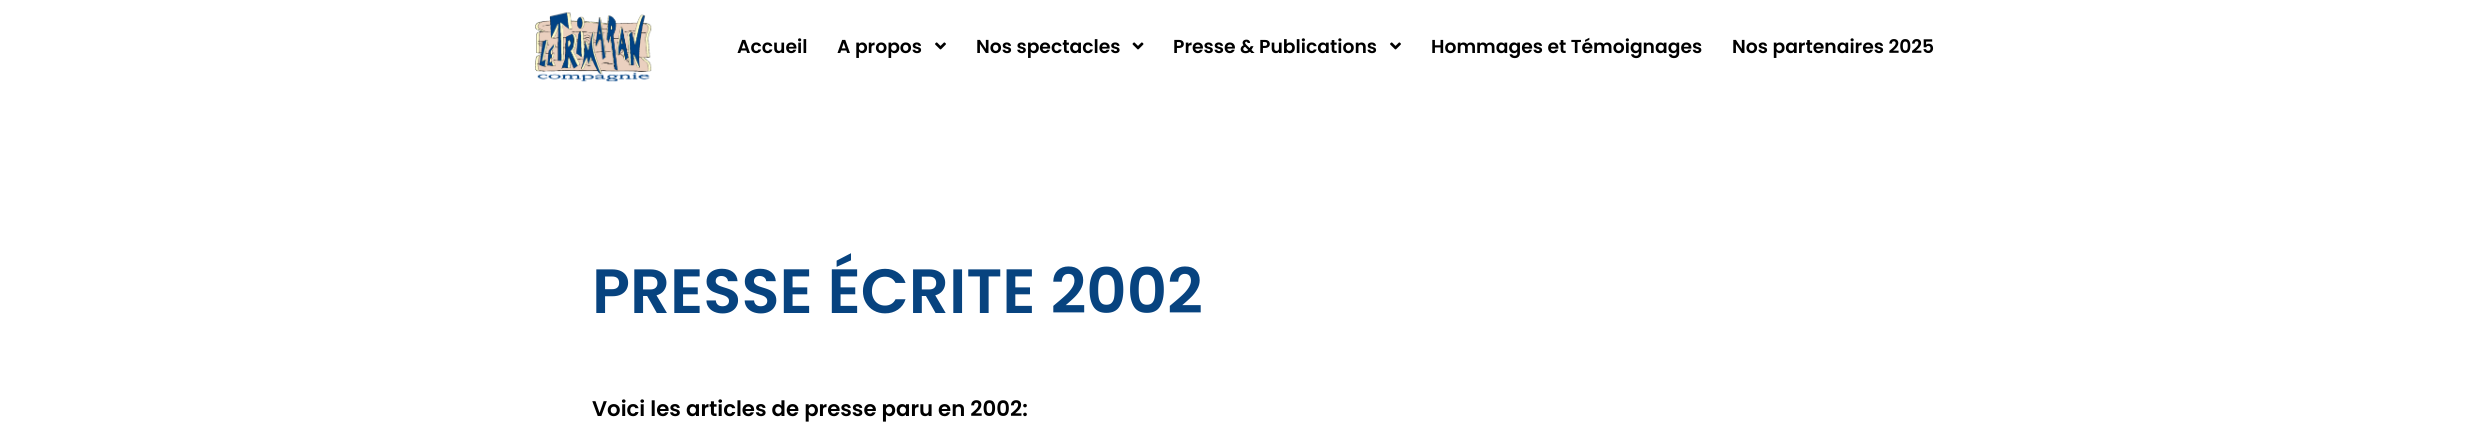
#include <cairo/cairo.h>
#include <math.h>
#include <stddef.h>

typedef struct { double x, y; const char *s; } line_t;
static cairo_t *cr;

static void rgb(unsigned color)
{
	cairo_set_source_rgb(cr, (color >> 16) / 255.0, (color >> 8 & 255) / 255.0, (color & 255) / 255.0);
}

static void image(const char *path, double x, double y, double w, double h)
{
	cairo_surface_t *image = cairo_image_surface_create_from_png(path);
	cairo_save(cr);
	cairo_set_source_surface(cr, image, x, y);
	cairo_rectangle(cr, x, y, w, h);
	cairo_fill(cr);
	cairo_restore(cr);
	cairo_surface_destroy(image);
}

int main(void) {
	cairo_surface_t *surface = cairo_image_surface_create(CAIRO_FORMAT_RGB24, 2468, 444);
	cr = cairo_create(surface);
	cairo_font_options_t *options = cairo_font_options_create();
	cairo_font_options_set_hint_metrics(options, CAIRO_HINT_METRICS_OFF);
	cairo_font_options_set_hint_style(options, CAIRO_HINT_STYLE_NONE);
	cairo_set_font_options(cr, options);
	cairo_set_miter_limit(cr, 4);
	rgb(0xffffff);
	cairo_paint(cr);
	image("img/1.png", 535, 12, 117, 70);
	image("img/2.png", 935, 42, 11, 8);
	image("img/3.png", 1132, 42, 12, 8);
	image("img/2.png", 1390, 42, 11, 8);
	cairo_select_font_face(cr, "Poppins SemiBold", CAIRO_FONT_SLANT_NORMAL, CAIRO_FONT_WEIGHT_NORMAL);
	cairo_set_font_size(cr, 18.75);
	rgb(0x000000);
	{
		static const line_t items[] = {
			{737, 53, "Accueil"},
			{837, 53, "A propos"},
			{976, 53, "Nos spectacles"},
			{1173, 53, "Presse & Publications"},
			{1431, 53, "Hommages et Témoignages"},
			{1732, 53, "Nos partenaires 2025"},
		};
		for (size_t i = 0; i < sizeof items / sizeof *items; i++) {
			cairo_move_to(cr, items[i].x, items[i].y);
			cairo_show_text(cr, items[i].s);
		}
	}
	cairo_set_font_size(cr, 62.5);
	rgb(0x07437f);
	cairo_move_to(cr, 592, 313);
	cairo_show_text(cr, "PRESSE ÉCRITE 2002");
	cairo_set_font_size(cr, 21.25);
	rgb(0x000000);
	cairo_move_to(cr, 592, 416);
	cairo_show_text(cr, "Voici les articles de presse paru en 2002:");
	cairo_surface_write_to_png(surface, "page.png");
	cairo_font_options_destroy(options);
	cairo_destroy(cr);
	cairo_surface_destroy(surface);
	return 0;
}
